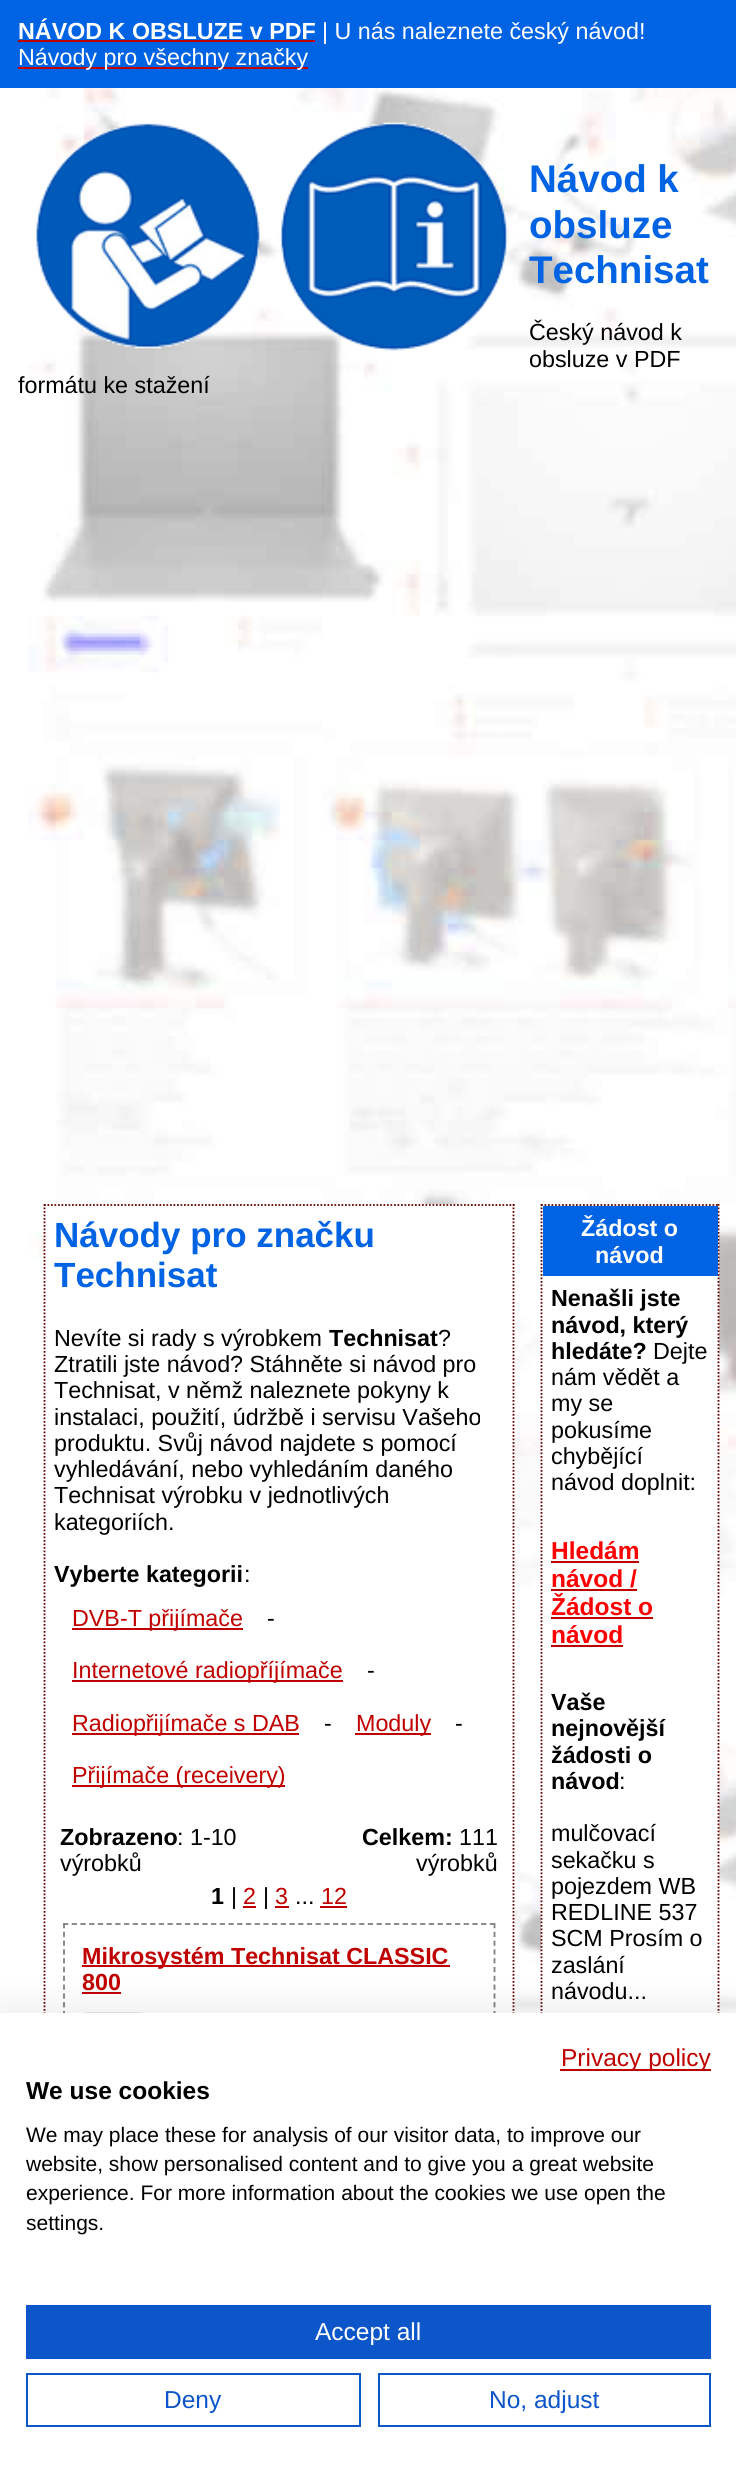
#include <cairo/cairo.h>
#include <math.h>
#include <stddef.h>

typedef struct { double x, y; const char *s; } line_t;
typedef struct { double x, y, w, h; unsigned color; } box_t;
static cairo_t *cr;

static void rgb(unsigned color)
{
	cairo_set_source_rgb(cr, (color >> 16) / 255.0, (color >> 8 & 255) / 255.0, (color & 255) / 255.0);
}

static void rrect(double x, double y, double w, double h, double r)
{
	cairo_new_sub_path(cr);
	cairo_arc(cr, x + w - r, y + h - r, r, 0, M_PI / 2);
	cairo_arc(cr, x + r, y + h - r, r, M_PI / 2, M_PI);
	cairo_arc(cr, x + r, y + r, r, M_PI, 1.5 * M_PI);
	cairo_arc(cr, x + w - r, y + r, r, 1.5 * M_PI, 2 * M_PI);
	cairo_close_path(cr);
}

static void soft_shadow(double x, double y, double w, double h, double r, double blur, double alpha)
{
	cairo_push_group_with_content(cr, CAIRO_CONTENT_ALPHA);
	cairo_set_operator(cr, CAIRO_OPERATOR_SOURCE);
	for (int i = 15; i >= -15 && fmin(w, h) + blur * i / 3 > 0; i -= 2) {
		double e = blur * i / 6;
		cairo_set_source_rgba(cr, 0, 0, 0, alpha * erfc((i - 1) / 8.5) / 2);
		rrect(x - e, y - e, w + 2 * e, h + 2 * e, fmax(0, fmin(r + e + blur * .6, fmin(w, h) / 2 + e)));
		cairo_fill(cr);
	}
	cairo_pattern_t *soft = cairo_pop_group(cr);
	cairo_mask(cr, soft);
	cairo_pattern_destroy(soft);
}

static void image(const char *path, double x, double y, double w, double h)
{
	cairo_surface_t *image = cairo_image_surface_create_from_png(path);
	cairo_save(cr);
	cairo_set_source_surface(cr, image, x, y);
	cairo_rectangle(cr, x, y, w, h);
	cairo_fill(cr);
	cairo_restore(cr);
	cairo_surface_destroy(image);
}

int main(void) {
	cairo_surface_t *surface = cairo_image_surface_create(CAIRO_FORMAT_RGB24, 736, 2473);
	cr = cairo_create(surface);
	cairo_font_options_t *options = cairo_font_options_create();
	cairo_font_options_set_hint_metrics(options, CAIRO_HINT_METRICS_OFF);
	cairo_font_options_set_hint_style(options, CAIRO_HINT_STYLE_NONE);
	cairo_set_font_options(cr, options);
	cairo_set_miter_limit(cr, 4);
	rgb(0xffffff);
	cairo_paint(cr);
	image("img/1.png", 28, 88, 708, 1925);
	{
		static const box_t items[] = {
			{0, 0, 736, 88, 0x0063e4},
			{18, 40, 297, 2, 0xc00000},
			{18, 67, 290, 2, 0xc00000},
		};
		for (size_t i = 0; i < sizeof items / sizeof *items; i++) {
			rgb(items[i].color);
			cairo_rectangle(cr, items[i].x, items[i].y, items[i].w, items[i].h);
			cairo_fill(cr);
		}
	}
	image("img/2.png", 36, 122, 472, 229);
	rgb(0xffffff);
	cairo_rectangle(cr, 44, 1204, 471, 809);
	cairo_fill(cr);
	cairo_new_path(cr);
	cairo_move_to(cr, 44, 1205);
	cairo_line_to(cr, 514.5, 1205);
	rgb(0x660000);
	cairo_set_line_width(cr, 1.8);
	cairo_set_dash(cr, (double[]){1.75, 1.75}, 2, 0);
	cairo_stroke(cr);
	cairo_new_path(cr);
	cairo_move_to(cr, 513.5, 1204);
	cairo_line_to(cr, 513.5, 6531);
	cairo_stroke(cr);
	cairo_new_path(cr);
	cairo_move_to(cr, 44.5, 1204);
	cairo_line_to(cr, 44.5, 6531);
	cairo_stroke(cr);
	{
		static const box_t items[] = {
			{72, 1628, 171, 2, 0xc00000},
			{72, 1680, 271, 2, 0xc00000},
			{72, 1733, 227, 2, 0xc00000},
			{355, 1733, 76, 2, 0xc00000},
			{72, 1785, 213, 2, 0xc00000},
			{243, 1906, 13, 2, 0xc00000},
			{275, 1906, 14, 2, 0xc00000},
			{320, 1906, 27, 2, 0xc00000},
		};
		for (size_t i = 0; i < sizeof items / sizeof *items; i++) {
			rgb(items[i].color);
			cairo_rectangle(cr, items[i].x, items[i].y, items[i].w, items[i].h);
			cairo_fill(cr);
		}
	}
	cairo_new_path(cr);
	cairo_move_to(cr, 63, 1924);
	cairo_line_to(cr, 495, 1924);
	rgb(0x808080);
	cairo_set_dash(cr, (double[]){5.25, 3.46}, 2, 0);
	cairo_stroke(cr);
	cairo_new_path(cr);
	cairo_move_to(cr, 494.5, 1923);
	cairo_line_to(cr, 494.5, 2298);
	cairo_set_dash(cr, (double[]){5.25, 3.54}, 2, 0);
	cairo_stroke(cr);
	cairo_new_path(cr);
	cairo_move_to(cr, 64, 1923);
	cairo_line_to(cr, 64, 2298);
	cairo_stroke(cr);
	rgb(0xc00000);
	cairo_rectangle(cr, 82, 1965, 368, 2);
	cairo_fill(cr);
	cairo_rectangle(cr, 82, 1992, 39, 2);
	cairo_fill(cr);
	image("img/3.png", 82, 2012, 230, 1);
	rgb(0xffffff);
	cairo_rectangle(cr, 541, 1218, 178, 795);
	cairo_fill(cr);
	cairo_new_path(cr);
	cairo_move_to(cr, 541, 1205);
	cairo_line_to(cr, 719, 1205);
	rgb(0x660000);
	cairo_set_dash(cr, (double[]){1.75, 1.75}, 2, 0);
	cairo_stroke(cr);
	cairo_new_path(cr);
	cairo_move_to(cr, 718.5, 1204);
	cairo_line_to(cr, 718.5, 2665);
	cairo_stroke(cr);
	cairo_new_path(cr);
	cairo_move_to(cr, 541.5, 1204);
	cairo_line_to(cr, 541.5, 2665);
	cairo_stroke(cr);
	{
		static const box_t items[] = {
			{543, 1206, 175, 70, 0x0063e4},
			{551, 1561, 88, 2, 0xc00000},
			{551, 1589, 86, 2, 0xc00000},
			{551, 1617, 102, 2, 0xc00000},
			{551, 1645, 72, 2, 0xc00000},
		};
		for (size_t i = 0; i < sizeof items / sizeof *items; i++) {
			rgb(items[i].color);
			cairo_rectangle(cr, items[i].x, items[i].y, items[i].w, items[i].h);
			cairo_fill(cr);
		}
	}
	rgb(0x000000);
	soft_shadow(0, 2013, 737, 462, 0, 21, 0.1);
	{
		static const box_t items[] = {
			{0, 2013, 736, 460, 0xffffff},
			{560, 2069, 151, 2, 0xc00000},
			{26, 2305, 685, 54, 0x0d56c9},
		};
		for (size_t i = 0; i < sizeof items / sizeof *items; i++) {
			rgb(items[i].color);
			cairo_rectangle(cr, items[i].x, items[i].y, items[i].w, items[i].h);
			cairo_fill(cr);
		}
	}
	cairo_rectangle(cr, 27, 2374, 333, 52);
	cairo_set_line_width(cr, 2);
	cairo_set_dash(cr, NULL, 0, 0);
	cairo_stroke(cr);
	cairo_rectangle(cr, 379, 2374, 331, 52);
	cairo_stroke(cr);
	cairo_select_font_face(cr, "Liberation Sans", CAIRO_FONT_SLANT_NORMAL, CAIRO_FONT_WEIGHT_BOLD);
	cairo_set_font_size(cr, 23.3);
	rgb(0xffffff);
	cairo_move_to(cr, 18, 39);
	cairo_show_text(cr, "NÁVOD K OBSLUZE v PDF");
	cairo_select_font_face(cr, "Liberation Sans", CAIRO_FONT_SLANT_NORMAL, CAIRO_FONT_WEIGHT_NORMAL);
	cairo_move_to(cr, 322, 39);
	cairo_show_text(cr, "| U nás naleznete český návod!");
	cairo_move_to(cr, 18, 65);
	cairo_show_text(cr, "Návody pro všechny značky");
	cairo_select_font_face(cr, "Liberation Sans", CAIRO_FONT_SLANT_NORMAL, CAIRO_FONT_WEIGHT_BOLD);
	cairo_set_font_size(cr, 38.5);
	rgb(0x0063e4);
	{
		static const line_t items[] = {
			{529, 192, "Návod k"},
			{529, 238, "obsluze"},
			{529, 283, "Technisat"},
		};
		for (size_t i = 0; i < sizeof items / sizeof *items; i++) {
			cairo_move_to(cr, items[i].x, items[i].y);
			cairo_show_text(cr, items[i].s);
		}
	}
	cairo_select_font_face(cr, "Liberation Sans", CAIRO_FONT_SLANT_NORMAL, CAIRO_FONT_WEIGHT_NORMAL);
	cairo_set_font_size(cr, 23.3);
	rgb(0x000000);
	{
		static const line_t items[] = {
			{529, 340, "Český návod k"},
			{529, 367, "obsluze v PDF"},
			{18, 393, "formátu ke stažení"},
		};
		for (size_t i = 0; i < sizeof items / sizeof *items; i++) {
			cairo_move_to(cr, items[i].x, items[i].y);
			cairo_show_text(cr, items[i].s);
		}
	}
	cairo_select_font_face(cr, "Liberation Sans", CAIRO_FONT_SLANT_NORMAL, CAIRO_FONT_WEIGHT_BOLD);
	cairo_set_font_size(cr, 35);
	rgb(0x0063e4);
	cairo_move_to(cr, 54, 1247);
	cairo_show_text(cr, "Návody pro značku");
	cairo_move_to(cr, 54, 1287);
	cairo_show_text(cr, "Technisat");
	cairo_select_font_face(cr, "Liberation Sans", CAIRO_FONT_SLANT_NORMAL, CAIRO_FONT_WEIGHT_NORMAL);
	cairo_set_font_size(cr, 23.3);
	rgb(0x000000);
	cairo_move_to(cr, 54, 1346);
	cairo_show_text(cr, "Nevíte si rady s výrobkem");
	cairo_select_font_face(cr, "Liberation Sans", CAIRO_FONT_SLANT_NORMAL, CAIRO_FONT_WEIGHT_BOLD);
	cairo_move_to(cr, 329, 1346);
	cairo_show_text(cr, "Technisat");
	cairo_select_font_face(cr, "Liberation Sans", CAIRO_FONT_SLANT_NORMAL, CAIRO_FONT_WEIGHT_NORMAL);
	{
		static const line_t items[] = {
			{438, 1346, "?"},
			{54, 1372, "Ztratili jste návod? Stáhněte si návod pro"},
			{54, 1398, "Technisat, v němž naleznete pokyny k"},
			{54, 1425, "instalaci, použití, údržbě i servisu Vašeho"},
			{54, 1451, "produktu. Svůj návod najdete s pomocí"},
			{54, 1477, "vyhledávání, nebo vyhledáním daného"},
			{54, 1503, "Technisat výrobku v jednotlivých"},
			{54, 1530, "kategoriích."},
		};
		for (size_t i = 0; i < sizeof items / sizeof *items; i++) {
			cairo_move_to(cr, items[i].x, items[i].y);
			cairo_show_text(cr, items[i].s);
		}
	}
	cairo_select_font_face(cr, "Liberation Sans", CAIRO_FONT_SLANT_NORMAL, CAIRO_FONT_WEIGHT_BOLD);
	cairo_move_to(cr, 54, 1582);
	cairo_show_text(cr, "Vyberte kategorii");
	cairo_select_font_face(cr, "Liberation Sans", CAIRO_FONT_SLANT_NORMAL, CAIRO_FONT_WEIGHT_NORMAL);
	cairo_move_to(cr, 244, 1582);
	cairo_show_text(cr, ":");
	rgb(0xc00000);
	cairo_move_to(cr, 72, 1626);
	cairo_show_text(cr, "DVB-T přijímače");
	rgb(0x000000);
	cairo_move_to(cr, 267, 1626);
	cairo_show_text(cr, "-");
	rgb(0xc00000);
	cairo_move_to(cr, 72, 1678);
	cairo_show_text(cr, "Internetové radiopříjímače");
	rgb(0x000000);
	cairo_move_to(cr, 367, 1678);
	cairo_show_text(cr, "-");
	rgb(0xc00000);
	cairo_move_to(cr, 72, 1731);
	cairo_show_text(cr, "Radiopřijímače s DAB");
	rgb(0x000000);
	cairo_move_to(cr, 324, 1731);
	cairo_show_text(cr, "-");
	rgb(0xc00000);
	cairo_move_to(cr, 356, 1731);
	cairo_show_text(cr, "Moduly");
	rgb(0x000000);
	cairo_move_to(cr, 455, 1731);
	cairo_show_text(cr, "-");
	rgb(0xc00000);
	cairo_move_to(cr, 72, 1783);
	cairo_show_text(cr, "Přijímače (receivery)");
	cairo_select_font_face(cr, "Liberation Sans", CAIRO_FONT_SLANT_NORMAL, CAIRO_FONT_WEIGHT_BOLD);
	rgb(0x000000);
	cairo_move_to(cr, 60, 1845);
	cairo_show_text(cr, "Zobrazeno");
	cairo_select_font_face(cr, "Liberation Sans", CAIRO_FONT_SLANT_NORMAL, CAIRO_FONT_WEIGHT_NORMAL);
	cairo_move_to(cr, 177, 1845);
	cairo_show_text(cr, ": 1-10");
	cairo_move_to(cr, 60, 1871);
	cairo_show_text(cr, "výrobků");
	cairo_select_font_face(cr, "Liberation Sans", CAIRO_FONT_SLANT_NORMAL, CAIRO_FONT_WEIGHT_BOLD);
	cairo_move_to(cr, 362, 1845);
	cairo_show_text(cr, "Celkem:");
	cairo_select_font_face(cr, "Liberation Sans", CAIRO_FONT_SLANT_NORMAL, CAIRO_FONT_WEIGHT_NORMAL);
	cairo_move_to(cr, 459, 1845);
	cairo_show_text(cr, "111");
	cairo_move_to(cr, 416, 1871);
	cairo_show_text(cr, "výrobků");
	cairo_select_font_face(cr, "Liberation Sans", CAIRO_FONT_SLANT_NORMAL, CAIRO_FONT_WEIGHT_BOLD);
	cairo_move_to(cr, 211, 1904);
	cairo_show_text(cr, "1");
	cairo_select_font_face(cr, "Liberation Sans", CAIRO_FONT_SLANT_NORMAL, CAIRO_FONT_WEIGHT_NORMAL);
	cairo_move_to(cr, 231, 1904);
	cairo_show_text(cr, "|");
	rgb(0xc00000);
	cairo_move_to(cr, 243, 1904);
	cairo_show_text(cr, "2");
	rgb(0x000000);
	cairo_move_to(cr, 263, 1904);
	cairo_show_text(cr, "|");
	rgb(0xc00000);
	cairo_move_to(cr, 275, 1904);
	cairo_show_text(cr, "3");
	rgb(0x000000);
	cairo_move_to(cr, 295, 1904);
	cairo_show_text(cr, "...");
	rgb(0xc00000);
	cairo_move_to(cr, 321, 1904);
	cairo_show_text(cr, "12");
	cairo_select_font_face(cr, "Liberation Sans", CAIRO_FONT_SLANT_NORMAL, CAIRO_FONT_WEIGHT_BOLD);
	cairo_move_to(cr, 82, 1964);
	cairo_show_text(cr, "Mikrosystém Technisat CLASSIC");
	cairo_move_to(cr, 82, 1990);
	cairo_show_text(cr, "800");
	rgb(0xffffff);
	cairo_move_to(cr, 581, 1236);
	cairo_show_text(cr, "Žádost o");
	cairo_move_to(cr, 595, 1263);
	cairo_show_text(cr, "návod");
	rgb(0x000000);
	{
		static const line_t items[] = {
			{551, 1306, "Nenašli jste"},
			{551, 1333, "návod, který"},
			{551, 1359, "hledáte?"},
		};
		for (size_t i = 0; i < sizeof items / sizeof *items; i++) {
			cairo_move_to(cr, items[i].x, items[i].y);
			cairo_show_text(cr, items[i].s);
		}
	}
	cairo_select_font_face(cr, "Liberation Sans", CAIRO_FONT_SLANT_NORMAL, CAIRO_FONT_WEIGHT_NORMAL);
	{
		static const line_t items[] = {
			{653, 1359, "Dejte"},
			{551, 1385, "nám vědět a"},
			{551, 1411, "my se"},
			{551, 1438, "pokusíme"},
			{551, 1464, "chybějící"},
			{551, 1490, "návod doplnit:"},
		};
		for (size_t i = 0; i < sizeof items / sizeof *items; i++) {
			cairo_move_to(cr, items[i].x, items[i].y);
			cairo_show_text(cr, items[i].s);
		}
	}
	cairo_select_font_face(cr, "Liberation Sans", CAIRO_FONT_SLANT_NORMAL, CAIRO_FONT_WEIGHT_BOLD);
	cairo_set_font_size(cr, 24.5);
	rgb(0xff0000);
	{
		static const line_t items[] = {
			{551, 1559, "Hledám"},
			{551, 1587, "návod /"},
			{551, 1615, "Žádost o"},
			{551, 1643, "návod"},
		};
		for (size_t i = 0; i < sizeof items / sizeof *items; i++) {
			cairo_move_to(cr, items[i].x, items[i].y);
			cairo_show_text(cr, items[i].s);
		}
	}
	cairo_set_font_size(cr, 23.3);
	rgb(0x000000);
	{
		static const line_t items[] = {
			{551, 1710, "Vaše"},
			{551, 1736, "nejnovější"},
			{551, 1763, "žádosti o"},
			{551, 1789, "návod"},
		};
		for (size_t i = 0; i < sizeof items / sizeof *items; i++) {
			cairo_move_to(cr, items[i].x, items[i].y);
			cairo_show_text(cr, items[i].s);
		}
	}
	cairo_select_font_face(cr, "Liberation Sans", CAIRO_FONT_SLANT_NORMAL, CAIRO_FONT_WEIGHT_NORMAL);
	{
		static const line_t items[] = {
			{619, 1789, ":"},
			{551, 1841, "mulčovací"},
			{551, 1868, "sekačku s"},
			{551, 1894, "pojezdem WB"},
			{551, 1920, "REDLINE 537"},
			{551, 1946, "SCM Prosím o"},
			{551, 1973, "zaslání"},
			{551, 1999, "návodu..."},
		};
		for (size_t i = 0; i < sizeof items / sizeof *items; i++) {
			cairo_move_to(cr, items[i].x, items[i].y);
			cairo_show_text(cr, items[i].s);
		}
	}
	cairo_set_font_size(cr, 24.5);
	rgb(0xc00000);
	cairo_move_to(cr, 561, 2066);
	cairo_show_text(cr, "Privacy policy");
	cairo_select_font_face(cr, "Liberation Sans", CAIRO_FONT_SLANT_NORMAL, CAIRO_FONT_WEIGHT_BOLD);
	rgb(0x000000);
	cairo_move_to(cr, 26, 2099);
	cairo_show_text(cr, "We use cookies");
	cairo_select_font_face(cr, "Liberation Sans", CAIRO_FONT_SLANT_NORMAL, CAIRO_FONT_WEIGHT_NORMAL);
	cairo_set_font_size(cr, 21);
	{
		static const line_t items[] = {
			{26, 2142, "We may place these for analysis of our visitor data, to improve our"},
			{26, 2171, "website, show personalised content and to give you a great website"},
			{26, 2200, "experience. For more information about the cookies we use open the"},
			{26, 2230, "settings."},
		};
		for (size_t i = 0; i < sizeof items / sizeof *items; i++) {
			cairo_move_to(cr, items[i].x, items[i].y);
			cairo_show_text(cr, items[i].s);
		}
	}
	cairo_set_font_size(cr, 24.5);
	rgb(0xffffff);
	cairo_move_to(cr, 315, 2340);
	cairo_show_text(cr, "Accept all");
	rgb(0x0d56c9);
	cairo_move_to(cr, 164, 2408);
	cairo_show_text(cr, "Deny");
	cairo_move_to(cr, 489, 2408);
	cairo_show_text(cr, "No, adjust");
	cairo_surface_write_to_png(surface, "page.png");
	cairo_font_options_destroy(options);
	cairo_destroy(cr);
	cairo_surface_destroy(surface);
	return 0;
}
